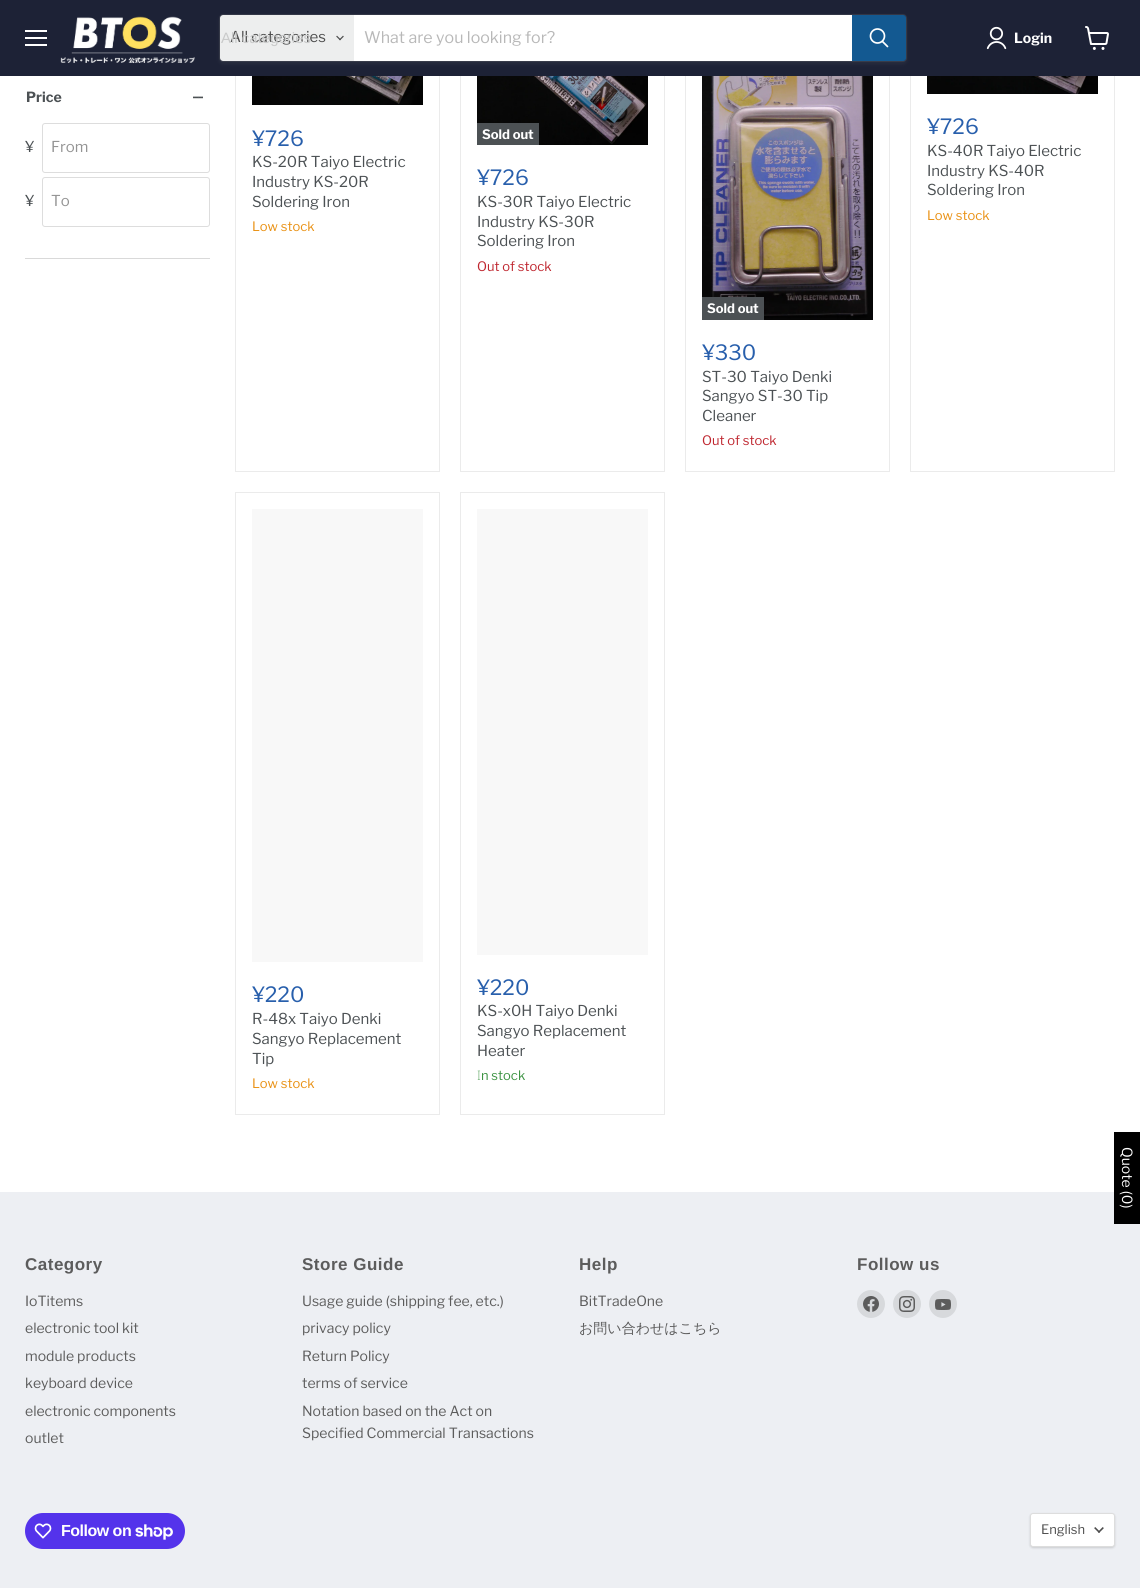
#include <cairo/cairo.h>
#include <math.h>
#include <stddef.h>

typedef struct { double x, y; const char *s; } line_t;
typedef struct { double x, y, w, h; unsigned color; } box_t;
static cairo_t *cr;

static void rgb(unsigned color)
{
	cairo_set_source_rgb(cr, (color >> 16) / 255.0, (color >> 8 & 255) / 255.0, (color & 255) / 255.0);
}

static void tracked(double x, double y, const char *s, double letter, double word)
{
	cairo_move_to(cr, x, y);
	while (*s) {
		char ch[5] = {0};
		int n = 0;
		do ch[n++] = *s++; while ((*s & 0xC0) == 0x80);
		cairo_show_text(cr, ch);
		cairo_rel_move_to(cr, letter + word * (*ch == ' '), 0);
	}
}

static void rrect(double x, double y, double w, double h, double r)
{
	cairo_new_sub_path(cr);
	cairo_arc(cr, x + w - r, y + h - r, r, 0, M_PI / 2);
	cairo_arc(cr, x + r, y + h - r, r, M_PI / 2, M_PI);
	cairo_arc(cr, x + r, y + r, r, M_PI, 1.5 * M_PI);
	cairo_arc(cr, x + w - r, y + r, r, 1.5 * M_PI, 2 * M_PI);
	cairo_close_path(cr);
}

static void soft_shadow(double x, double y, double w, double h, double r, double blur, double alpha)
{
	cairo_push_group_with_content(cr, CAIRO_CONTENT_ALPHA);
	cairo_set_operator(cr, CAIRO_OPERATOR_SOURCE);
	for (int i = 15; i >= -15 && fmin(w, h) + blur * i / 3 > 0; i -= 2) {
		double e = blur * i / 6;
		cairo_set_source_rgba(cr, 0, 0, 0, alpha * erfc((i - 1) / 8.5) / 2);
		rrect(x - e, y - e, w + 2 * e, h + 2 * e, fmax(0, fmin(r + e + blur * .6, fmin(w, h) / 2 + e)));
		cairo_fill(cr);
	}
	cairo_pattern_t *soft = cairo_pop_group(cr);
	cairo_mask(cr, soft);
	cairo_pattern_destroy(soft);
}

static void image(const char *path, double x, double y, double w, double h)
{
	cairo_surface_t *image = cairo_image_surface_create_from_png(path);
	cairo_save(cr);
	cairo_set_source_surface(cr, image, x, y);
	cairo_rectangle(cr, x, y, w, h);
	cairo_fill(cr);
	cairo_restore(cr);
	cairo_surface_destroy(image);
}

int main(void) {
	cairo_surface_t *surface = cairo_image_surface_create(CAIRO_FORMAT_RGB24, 1140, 1588);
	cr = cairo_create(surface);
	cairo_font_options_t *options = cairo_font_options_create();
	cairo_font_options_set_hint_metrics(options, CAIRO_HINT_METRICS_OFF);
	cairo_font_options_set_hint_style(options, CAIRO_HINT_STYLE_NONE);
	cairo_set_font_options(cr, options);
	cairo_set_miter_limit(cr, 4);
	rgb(0xffffff);
	cairo_paint(cr);
	cairo_rectangle(cr, 235.5, -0.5, 204, 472);
	rgb(0xebebeb);
	cairo_set_line_width(cr, 1);
	cairo_stroke(cr);
	cairo_rectangle(cr, 460.5, -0.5, 204, 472);
	cairo_stroke(cr);
	cairo_rectangle(cr, 910.5, -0.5, 204, 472);
	cairo_stroke(cr);
	cairo_rectangle(cr, 685.5, -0.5, 204, 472);
	cairo_stroke(cr);
	{
		static const box_t items[] = {
			{0, 0, 1140, 76, 0x1d2236},
			{25, 30, 22, 2, 0xffffff},
			{25, 37, 22, 2, 0xffffff},
			{25, 44, 22, 2, 0xffffff},
		};
		for (size_t i = 0; i < sizeof items / sizeof *items; i++) {
			rgb(items[i].color);
			cairo_rectangle(cr, items[i].x, items[i].y, items[i].w, items[i].h);
			cairo_fill(cr);
		}
	}
	image("img/1.png", 60, 16, 135, 48);
	rgb(0x808080);
	soft_shadow(219, 16, 688, 48, 4, 1.5, 0.11);
	rrect(219.5, 14.5, 687, 47, 3.5);
	cairo_set_source_rgba(cr, 0.502, 0.502, 0.502, 0.2);
	cairo_stroke(cr);
	rgb(0xedeeee);
	cairo_new_path(cr);
	cairo_move_to(cr, 223, 15);
	cairo_line_to(cr, 354, 15);
	cairo_line_to(cr, 354, 61);
	cairo_line_to(cr, 223, 61);
	cairo_curve_to(cr, 221.5, 61, 220, 59.5, 220, 58);
	cairo_line_to(cr, 220, 18);
	cairo_curve_to(cr, 220, 16.5, 221.5, 15, 223, 15);
	cairo_close_path(cr);
	cairo_fill(cr);
	image("img/2.png", 336, 35, 8, 6);
	rgb(0xffffff);
	cairo_rectangle(cr, 354, 15, 498, 46);
	cairo_fill(cr);
	rgb(0x135991);
	cairo_new_path(cr);
	cairo_move_to(cr, 852.5, 15.5);
	cairo_line_to(cr, 903, 15.5);
	cairo_curve_to(cr, 904.5, 15.5, 905.5, 16.5, 905.5, 18);
	cairo_line_to(cr, 905.5, 58);
	cairo_curve_to(cr, 905.5, 59.5, 904.5, 60.5, 903, 60.5);
	cairo_line_to(cr, 852.5, 60.5);
	cairo_close_path(cr);
	cairo_fill_preserve(cr);
	cairo_stroke(cr);
	cairo_new_path(cr);
	cairo_move_to(cr, 887.5, 46.5);
	cairo_line_to(cr, 882.5, 41.5);
	rgb(0xffffff);
	cairo_set_line_width(cr, 1.7);
	cairo_set_line_cap(cr, CAIRO_LINE_CAP_ROUND);
	cairo_stroke(cr);
	cairo_arc(cr, 877.5, 36, 7, 0, 2 * M_PI);
	cairo_set_line_cap(cr, CAIRO_LINE_CAP_BUTT);
	cairo_stroke(cr);
	image("img/3.png", 986, 26, 21, 24);
	image("img/4.png", 1085, 26, 24, 24);
	rgb(0xd9d9d9);
	cairo_rectangle(cr, 25, 258, 185, 1);
	cairo_fill(cr);
	image("img/5.png", 193, 96, 10, 3);
	rrect(42.5, 123.5, 167, 49, 2.5);
	rgb(0xdddddd);
	cairo_set_line_width(cr, 1);
	cairo_stroke(cr);
	rrect(42.5, 177.5, 167, 49, 2.5);
	cairo_stroke(cr);
	image("img/6.png", 252, 76, 171, 29);
	image("img/7.png", 477, 76, 171, 69);
	rgb(0x4c5154);
	cairo_rectangle(cr, 477, 123, 62, 22);
	cairo_fill(cr);
	image("img/8.png", 927, 76, 171, 18);
	image("img/9.png", 702, 76, 171, 244);
	cairo_rectangle(cr, 702, 297, 62, 23);
	cairo_fill(cr);
	cairo_rectangle(cr, 235.5, 492.5, 204, 622);
	rgb(0xebebeb);
	cairo_stroke(cr);
	rgb(0xf8f8f8);
	cairo_rectangle(cr, 252, 509, 171, 453);
	cairo_fill(cr);
	cairo_rectangle(cr, 460.5, 492.5, 204, 622);
	rgb(0xebebeb);
	cairo_stroke(cr);
	{
		static const box_t items[] = {
			{477, 509, 171, 446, 0xf8f8f8},
			{0, 1192, 1140, 396, 0xedeff3},
			{1114, 1132, 26, 92, 0x000000},
		};
		for (size_t i = 0; i < sizeof items / sizeof *items; i++) {
			rgb(items[i].color);
			cairo_rectangle(cr, items[i].x, items[i].y, items[i].w, items[i].h);
			cairo_fill(cr);
		}
	}
	rgb(0xd7d9dc);
	cairo_arc(cr, 871, 1304, 14, 0, 2 * M_PI);
	cairo_fill(cr);
	image("img/10.png", 863, 1296, 16, 16);
	cairo_arc(cr, 907, 1304, 14, 0, 2 * M_PI);
	cairo_fill(cr);
	image("img/11.png", 899, 1296, 16, 16);
	cairo_arc(cr, 943, 1304, 14, 0, 2 * M_PI);
	cairo_fill(cr);
	image("img/12.png", 935, 1299, 16, 11);
	rgb(0x5433eb);
	rrect(25, 1513, 160, 36, 18);
	cairo_fill(cr);
	image("img/13.png", 34, 1523, 18, 16);
	image("img/14.png", 135, 1524, 38, 16);
	rgb(0x000000);
	soft_shadow(1030, 1514, 85, 34, 3, 1, 0.15);
	rgb(0xffffff);
	rrect(1030.5, 1513.5, 84, 33, 2.5);
	cairo_fill_preserve(cr);
	rgb(0xdddddd);
	cairo_stroke(cr);
	image("img/15.png", 1094, 1527, 10, 6);
	cairo_select_font_face(cr, "Libre Franklin", CAIRO_FONT_SLANT_NORMAL, CAIRO_FONT_WEIGHT_NORMAL);
	cairo_set_font_size(cr, 15);
	rgb(0x4d4d4d);
	cairo_move_to(cr, 230, 42);
	cairo_show_text(cr, "All categories");
	cairo_select_font_face(cr, "Liberation Sans", CAIRO_FONT_SLANT_NORMAL, CAIRO_FONT_WEIGHT_NORMAL);
	rgb(0xc9caca);
	cairo_move_to(cr, 221, 43);
	cairo_show_text(cr, "All categories");
	cairo_select_font_face(cr, "Libre Franklin", CAIRO_FONT_SLANT_NORMAL, CAIRO_FONT_WEIGHT_NORMAL);
	cairo_set_font_size(cr, 16);
	rgb(0xb8b8b8);
	cairo_move_to(cr, 364, 43);
	cairo_show_text(cr, "What are you looking for?");
	cairo_select_font_face(cr, "Libre Franklin", CAIRO_FONT_SLANT_NORMAL, CAIRO_FONT_WEIGHT_BOLD);
	cairo_set_font_size(cr, 14);
	rgb(0xffffff);
	cairo_move_to(cr, 1014, 43);
	cairo_show_text(cr, "Login");
	rgb(0x4c5154);
	cairo_move_to(cr, 26, 102);
	cairo_show_text(cr, "Price");
	cairo_select_font_face(cr, "Libre Franklin", CAIRO_FONT_SLANT_NORMAL, CAIRO_FONT_WEIGHT_NORMAL);
	cairo_set_font_size(cr, 15);
	cairo_move_to(cr, 25, 152);
	cairo_show_text(cr, "¥");
	rgb(0x949494);
	cairo_move_to(cr, 51, 152);
	cairo_show_text(cr, "From");
	rgb(0x4c5154);
	cairo_move_to(cr, 25, 206);
	cairo_show_text(cr, "¥");
	rgb(0x949494);
	cairo_move_to(cr, 51, 206);
	cairo_show_text(cr, "To");
	cairo_set_font_size(cr, 21);
	rgb(0x285fac);
	cairo_move_to(cr, 252, 146);
	cairo_show_text(cr, "¥726");
	cairo_set_font_size(cr, 15);
	rgb(0x4c5154);
	{
		static const line_t items[] = {
			{252, 167, "KS-20R Taiyo Electric"},
			{252, 187, "Industry KS-20R"},
			{252, 207, "Soldering Iron"},
		};
		for (size_t i = 0; i < sizeof items / sizeof *items; i++) {
			cairo_move_to(cr, items[i].x, items[i].y);
			cairo_show_text(cr, items[i].s);
		}
	}
	cairo_set_font_size(cr, 13);
	rgb(0xe99114);
	cairo_move_to(cr, 252, 231);
	cairo_show_text(cr, "Low stock");
	cairo_select_font_face(cr, "Libre Franklin", CAIRO_FONT_SLANT_NORMAL, CAIRO_FONT_WEIGHT_BOLD);
	rgb(0xffffff);
	cairo_move_to(cr, 482, 139);
	cairo_show_text(cr, "Sold out");
	cairo_select_font_face(cr, "Libre Franklin", CAIRO_FONT_SLANT_NORMAL, CAIRO_FONT_WEIGHT_NORMAL);
	cairo_set_font_size(cr, 21);
	rgb(0x285fac);
	cairo_move_to(cr, 477, 185);
	cairo_show_text(cr, "¥726");
	cairo_set_font_size(cr, 15);
	rgb(0x4c5154);
	{
		static const line_t items[] = {
			{477, 207, "KS-30R Taiyo Electric"},
			{477, 227, "Industry KS-30R"},
			{477, 246, "Soldering Iron"},
		};
		for (size_t i = 0; i < sizeof items / sizeof *items; i++) {
			cairo_move_to(cr, items[i].x, items[i].y);
			cairo_show_text(cr, items[i].s);
		}
	}
	cairo_set_font_size(cr, 13);
	rgb(0xbf262f);
	cairo_move_to(cr, 477, 271);
	cairo_show_text(cr, "Out of stock");
	cairo_set_font_size(cr, 21);
	rgb(0x285fac);
	cairo_move_to(cr, 927, 134);
	cairo_show_text(cr, "¥726");
	cairo_set_font_size(cr, 15);
	rgb(0x4c5154);
	{
		static const line_t items[] = {
			{927, 156, "KS-40R Taiyo Electric"},
			{927, 176, "Industry KS-40R"},
			{927, 195, "Soldering Iron"},
		};
		for (size_t i = 0; i < sizeof items / sizeof *items; i++) {
			cairo_move_to(cr, items[i].x, items[i].y);
			cairo_show_text(cr, items[i].s);
		}
	}
	cairo_set_font_size(cr, 13);
	rgb(0xe99114);
	cairo_move_to(cr, 927, 220);
	cairo_show_text(cr, "Low stock");
	cairo_select_font_face(cr, "Libre Franklin", CAIRO_FONT_SLANT_NORMAL, CAIRO_FONT_WEIGHT_BOLD);
	rgb(0xffffff);
	cairo_move_to(cr, 707, 313);
	cairo_show_text(cr, "Sold out");
	cairo_select_font_face(cr, "Libre Franklin", CAIRO_FONT_SLANT_NORMAL, CAIRO_FONT_WEIGHT_NORMAL);
	cairo_set_font_size(cr, 21);
	rgb(0x285fac);
	cairo_move_to(cr, 702, 360);
	cairo_show_text(cr, "¥330");
	cairo_set_font_size(cr, 15);
	rgb(0x4c5154);
	{
		static const line_t items[] = {
			{702, 382, "ST-30 Taiyo Denki"},
			{702, 401, "Sangyo ST-30 Tip"},
			{702, 421, "Cleaner"},
		};
		for (size_t i = 0; i < sizeof items / sizeof *items; i++) {
			cairo_move_to(cr, items[i].x, items[i].y);
			cairo_show_text(cr, items[i].s);
		}
	}
	cairo_set_font_size(cr, 13);
	rgb(0xbf262f);
	cairo_move_to(cr, 702, 445);
	cairo_show_text(cr, "Out of stock");
	cairo_set_font_size(cr, 21);
	rgb(0x285fac);
	cairo_move_to(cr, 252, 1002);
	cairo_show_text(cr, "¥220");
	cairo_set_font_size(cr, 15);
	rgb(0x4c5154);
	{
		static const line_t items[] = {
			{252, 1024, "R-48x Taiyo Denki"},
			{252, 1044, "Sangyo Replacement"},
			{252, 1064, "Tip"},
		};
		for (size_t i = 0; i < sizeof items / sizeof *items; i++) {
			cairo_move_to(cr, items[i].x, items[i].y);
			cairo_show_text(cr, items[i].s);
		}
	}
	cairo_set_font_size(cr, 13);
	rgb(0xe99114);
	cairo_move_to(cr, 252, 1088);
	cairo_show_text(cr, "Low stock");
	cairo_set_font_size(cr, 21);
	rgb(0x285fac);
	cairo_move_to(cr, 477, 995);
	cairo_show_text(cr, "¥220");
	cairo_set_font_size(cr, 15);
	rgb(0x4c5154);
	{
		static const line_t items[] = {
			{477, 1016, "KS-x0H Taiyo Denki"},
			{477, 1036, "Sangyo Replacement"},
			{477, 1056, "Heater"},
		};
		for (size_t i = 0; i < sizeof items / sizeof *items; i++) {
			cairo_move_to(cr, items[i].x, items[i].y);
			cairo_show_text(cr, items[i].s);
		}
	}
	cairo_select_font_face(cr, "Noto Sans ExtraLight", CAIRO_FONT_SLANT_NORMAL, CAIRO_FONT_WEIGHT_NORMAL);
	cairo_set_font_size(cr, 13);
	rgb(0x3c9342);
	cairo_move_to(cr, 477, 1080);
	cairo_show_text(cr, "I");
	cairo_select_font_face(cr, "Libre Franklin", CAIRO_FONT_SLANT_NORMAL, CAIRO_FONT_WEIGHT_NORMAL);
	cairo_move_to(cr, 481, 1080);
	cairo_show_text(cr, "n stock");
	cairo_set_font_size(cr, 14);
	rgb(0xffffff);
	cairo_save(cr);
	cairo_translate(cr, 1122, 1147);
	cairo_rotate(cr, 90 * M_PI / 180);
	cairo_move_to(cr, 0, 0);
	cairo_show_text(cr, "Quote (0)");
	cairo_restore(cr);
	cairo_select_font_face(cr, "Arimo", CAIRO_FONT_SLANT_NORMAL, CAIRO_FONT_WEIGHT_BOLD);
	cairo_set_font_size(cr, 17);
	rgb(0x5c5c5c);
	tracked(25, 1270, "Category", 0.5, 0);
	cairo_select_font_face(cr, "Libre Franklin", CAIRO_FONT_SLANT_NORMAL, CAIRO_FONT_WEIGHT_NORMAL);
	cairo_set_font_size(cr, 14);
	{
		static const line_t items[] = {
			{25, 1306, "IoTitems"},
			{25, 1333, "electronic tool kit"},
			{25, 1361, "module products"},
			{25, 1388, "keyboard device"},
			{25, 1416, "electronic components"},
			{25, 1443, "outlet"},
		};
		for (size_t i = 0; i < sizeof items / sizeof *items; i++) {
			cairo_move_to(cr, items[i].x, items[i].y);
			cairo_show_text(cr, items[i].s);
		}
	}
	cairo_select_font_face(cr, "Arimo", CAIRO_FONT_SLANT_NORMAL, CAIRO_FONT_WEIGHT_BOLD);
	cairo_set_font_size(cr, 17);
	tracked(302, 1270, "Store Guide", 0.5, 0);
	cairo_select_font_face(cr, "Libre Franklin", CAIRO_FONT_SLANT_NORMAL, CAIRO_FONT_WEIGHT_NORMAL);
	cairo_set_font_size(cr, 14);
	{
		static const line_t items[] = {
			{302, 1306, "Usage guide (shipping fee, etc.)"},
			{302, 1333, "privacy policy"},
			{302, 1361, "Return Policy"},
			{302, 1388, "terms of service"},
			{302, 1416, "Notation based on the Act on"},
			{302, 1438, "Specified Commercial Transactions"},
		};
		for (size_t i = 0; i < sizeof items / sizeof *items; i++) {
			cairo_move_to(cr, items[i].x, items[i].y);
			cairo_show_text(cr, items[i].s);
		}
	}
	cairo_select_font_face(cr, "Arimo", CAIRO_FONT_SLANT_NORMAL, CAIRO_FONT_WEIGHT_BOLD);
	cairo_set_font_size(cr, 17);
	tracked(579, 1270, "Help", 0.5, 0);
	cairo_select_font_face(cr, "Libre Franklin", CAIRO_FONT_SLANT_NORMAL, CAIRO_FONT_WEIGHT_NORMAL);
	cairo_set_font_size(cr, 14);
	cairo_move_to(cr, 579, 1306);
	cairo_show_text(cr, "BitTradeOne");
	cairo_select_font_face(cr, "WenQuanYi Zen Hei Medium", CAIRO_FONT_SLANT_NORMAL, CAIRO_FONT_WEIGHT_NORMAL);
	cairo_move_to(cr, 579, 1333);
	cairo_show_text(cr, "お問い合わせはこちら");
	cairo_select_font_face(cr, "Arimo", CAIRO_FONT_SLANT_NORMAL, CAIRO_FONT_WEIGHT_BOLD);
	cairo_set_font_size(cr, 17);
	tracked(857, 1270, "Follow us", 0.5, 0);
	cairo_select_font_face(cr, "Liberation Sans", CAIRO_FONT_SLANT_NORMAL, CAIRO_FONT_WEIGHT_BOLD);
	cairo_set_font_size(cr, 16);
	rgb(0xffffff);
	tracked(61, 1536, "Follow on", -0.5, 0);
	cairo_select_font_face(cr, "Libre Franklin", CAIRO_FONT_SLANT_NORMAL, CAIRO_FONT_WEIGHT_NORMAL);
	cairo_set_font_size(cr, 13);
	rgb(0x4d4d4d);
	cairo_move_to(cr, 1041, 1534);
	cairo_show_text(cr, "English");
	cairo_surface_write_to_png(surface, "page.png");
	cairo_font_options_destroy(options);
	cairo_destroy(cr);
	cairo_surface_destroy(surface);
	return 0;
}
